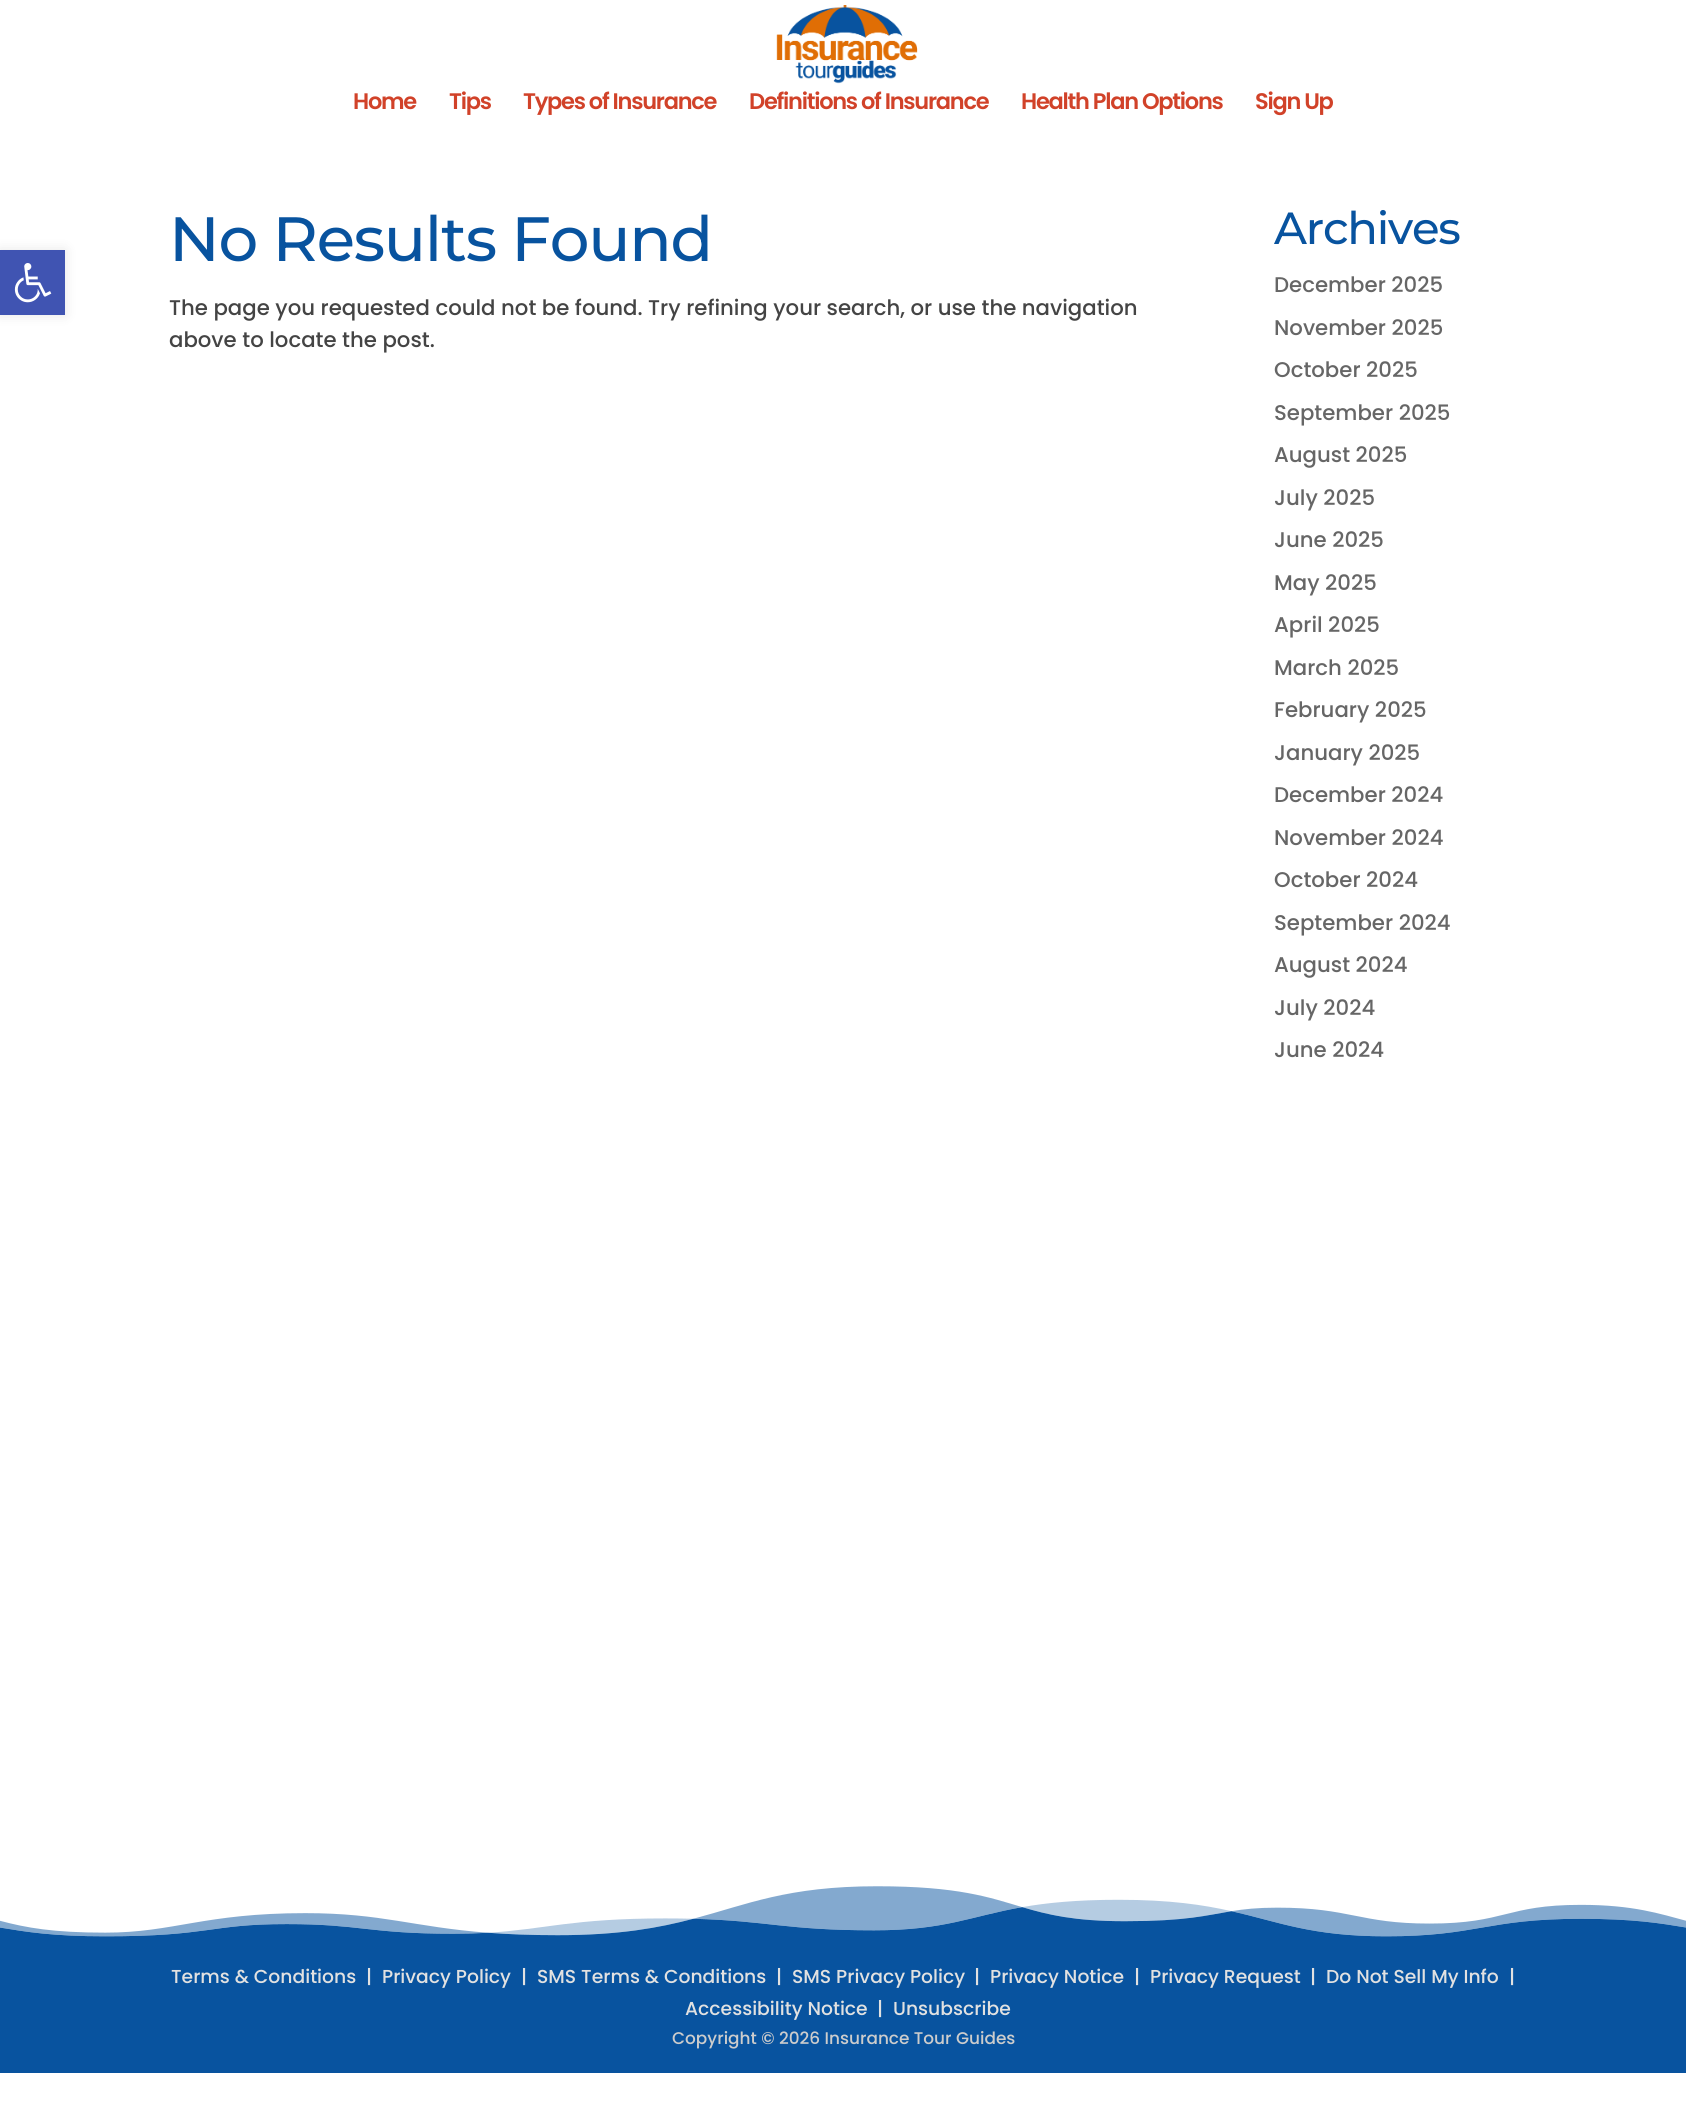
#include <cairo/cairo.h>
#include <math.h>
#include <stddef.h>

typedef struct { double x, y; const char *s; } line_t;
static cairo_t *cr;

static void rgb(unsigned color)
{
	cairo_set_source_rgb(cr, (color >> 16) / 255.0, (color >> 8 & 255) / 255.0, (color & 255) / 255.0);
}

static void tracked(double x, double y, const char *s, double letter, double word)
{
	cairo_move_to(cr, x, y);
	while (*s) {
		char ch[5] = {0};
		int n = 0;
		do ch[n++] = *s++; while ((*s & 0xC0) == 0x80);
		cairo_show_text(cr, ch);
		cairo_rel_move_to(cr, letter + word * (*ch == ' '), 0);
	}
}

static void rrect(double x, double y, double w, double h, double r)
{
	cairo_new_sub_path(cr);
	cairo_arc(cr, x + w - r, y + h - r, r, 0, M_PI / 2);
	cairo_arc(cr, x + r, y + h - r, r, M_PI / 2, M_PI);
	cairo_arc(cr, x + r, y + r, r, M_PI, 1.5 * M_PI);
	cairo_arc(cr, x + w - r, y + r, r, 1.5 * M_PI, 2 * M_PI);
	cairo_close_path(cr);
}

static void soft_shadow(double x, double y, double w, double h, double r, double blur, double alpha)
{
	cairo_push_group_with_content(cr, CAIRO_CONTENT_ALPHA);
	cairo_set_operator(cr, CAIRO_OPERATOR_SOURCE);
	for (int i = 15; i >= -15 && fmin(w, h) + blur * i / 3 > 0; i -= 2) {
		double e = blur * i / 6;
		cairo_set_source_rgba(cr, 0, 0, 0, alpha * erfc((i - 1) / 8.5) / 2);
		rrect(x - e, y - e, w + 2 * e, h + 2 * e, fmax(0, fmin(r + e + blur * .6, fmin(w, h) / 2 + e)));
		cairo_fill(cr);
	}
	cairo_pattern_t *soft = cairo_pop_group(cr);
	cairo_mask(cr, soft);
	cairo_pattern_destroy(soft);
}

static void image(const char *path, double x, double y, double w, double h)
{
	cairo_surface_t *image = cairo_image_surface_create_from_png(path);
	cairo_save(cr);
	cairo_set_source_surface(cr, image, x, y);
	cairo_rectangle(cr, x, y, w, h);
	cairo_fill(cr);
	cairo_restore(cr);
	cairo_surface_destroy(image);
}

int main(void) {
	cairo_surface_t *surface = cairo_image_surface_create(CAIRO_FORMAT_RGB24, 1686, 2114);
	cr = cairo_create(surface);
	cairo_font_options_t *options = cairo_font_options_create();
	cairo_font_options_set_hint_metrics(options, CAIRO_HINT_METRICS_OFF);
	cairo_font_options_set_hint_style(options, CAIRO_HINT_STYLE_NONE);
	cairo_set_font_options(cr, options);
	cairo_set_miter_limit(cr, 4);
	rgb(0xffffff);
	cairo_paint(cr);
	rgb(0x000000);
	soft_shadow(0, 250, 65, 65, 0, 6, 0.1);
	rgb(0x4054b2);
	cairo_rectangle(cr, 0, 250, 65, 65);
	cairo_fill(cr);
	image("img/1.png", 14, 263, 38, 40);
	image("img/2.png", 776, 5, 142, 79);
	image("img/3.png", 0, 1886, 1686, 55);
	rgb(0x08539f);
	cairo_rectangle(cr, 0, 1941, 1686, 132);
	cairo_fill(cr);
	cairo_select_font_face(cr, "Poppins SemiBold", CAIRO_FONT_SLANT_NORMAL, CAIRO_FONT_WEIGHT_NORMAL);
	cairo_set_font_size(cr, 22.5);
	rgb(0xd14229);
	{
		static const line_t items[] = {
			{353, 109, "Home"},
			{449, 109, "Tips"},
			{523, 109, "Types of Insurance"},
			{749, 109, "Definitions of Insurance"},
			{1021, 109, "Health Plan Options"},
			{1255, 109, "Sign Up"},
		};
		for (size_t i = 0; i < sizeof items / sizeof *items; i++) {
			tracked(items[i].x, items[i].y, items[i].s, -1.25, 0);
		}
	}
	cairo_select_font_face(cr, "Montserrat Thin", CAIRO_FONT_SLANT_NORMAL, CAIRO_FONT_WEIGHT_NORMAL);
	cairo_set_font_size(cr, 62.5);
	rgb(0x08539f);
	tracked(169, 261, "No Results Found", -1.25, 0);
	cairo_select_font_face(cr, "Poppins Medium", CAIRO_FONT_SLANT_NORMAL, CAIRO_FONT_WEIGHT_NORMAL);
	cairo_set_font_size(cr, 21.25);
	rgb(0x444444);
	cairo_move_to(cr, 169, 315);
	cairo_show_text(cr, "The page you requested could not be found. Try refining your search, or use the navigation");
	cairo_move_to(cr, 169, 347);
	cairo_show_text(cr, "above to locate the post.");
	cairo_select_font_face(cr, "Montserrat Thin", CAIRO_FONT_SLANT_NORMAL, CAIRO_FONT_WEIGHT_NORMAL);
	cairo_set_font_size(cr, 45);
	rgb(0x08539f);
	tracked(1274, 244, "Archives", -1.25, 0);
	cairo_select_font_face(cr, "Poppins Medium", CAIRO_FONT_SLANT_NORMAL, CAIRO_FONT_WEIGHT_NORMAL);
	cairo_set_font_size(cr, 21.25);
	rgb(0x666666);
	{
		static const line_t items[] = {
			{1274, 292, "December 2025"},
			{1274, 335, "November 2025"},
			{1274, 377, "October 2025"},
			{1274, 420, "September 2025"},
			{1274, 462, "August 2025"},
			{1274, 505, "July 2025"},
			{1274, 547, "June 2025"},
			{1274, 590, "May 2025"},
			{1274, 632, "April 2025"},
			{1274, 675, "March 2025"},
			{1274, 717, "February 2025"},
			{1274, 760, "January 2025"},
			{1274, 802, "December 2024"},
			{1274, 845, "November 2024"},
			{1274, 887, "October 2024"},
			{1274, 930, "September 2024"},
			{1274, 972, "August 2024"},
			{1274, 1015, "July 2024"},
			{1274, 1057, "June 2024"},
		};
		for (size_t i = 0; i < sizeof items / sizeof *items; i++) {
			cairo_move_to(cr, items[i].x, items[i].y);
			cairo_show_text(cr, items[i].s);
		}
	}
	cairo_set_font_size(cr, 18.75);
	rgb(0xe1e1e1);
	{
		static const line_t items[] = {
			{171, 1983, "Terms & Conditions"},
			{366, 1983, "|"},
			{382, 1983, "Privacy Policy"},
			{521, 1983, "|"},
			{537, 1983, "SMS Terms & Conditions"},
			{776, 1983, "|"},
			{792, 1983, "SMS Privacy Policy"},
			{974, 1983, "|"},
			{990, 1983, "Privacy Notice"},
			{1134, 1983, "|"},
			{1150, 1983, "Privacy Request"},
			{1310, 1983, "|"},
			{1326, 1983, "Do Not Sell My Info"},
			{1509, 1983, "|"},
			{685, 2015, "Accessibility Notice"},
			{877, 2015, "|"},
			{893, 2015, "Unsubscribe"},
		};
		for (size_t i = 0; i < sizeof items / sizeof *items; i++) {
			cairo_move_to(cr, items[i].x, items[i].y);
			cairo_show_text(cr, items[i].s);
		}
	}
	cairo_set_font_size(cr, 16.9);
	rgb(0xcccccc);
	cairo_move_to(cr, 672, 2044);
	cairo_show_text(cr, "Copyright © 2026 Insurance Tour Guides");
	cairo_surface_write_to_png(surface, "page.png");
	cairo_font_options_destroy(options);
	cairo_destroy(cr);
	cairo_surface_destroy(surface);
	return 0;
}
